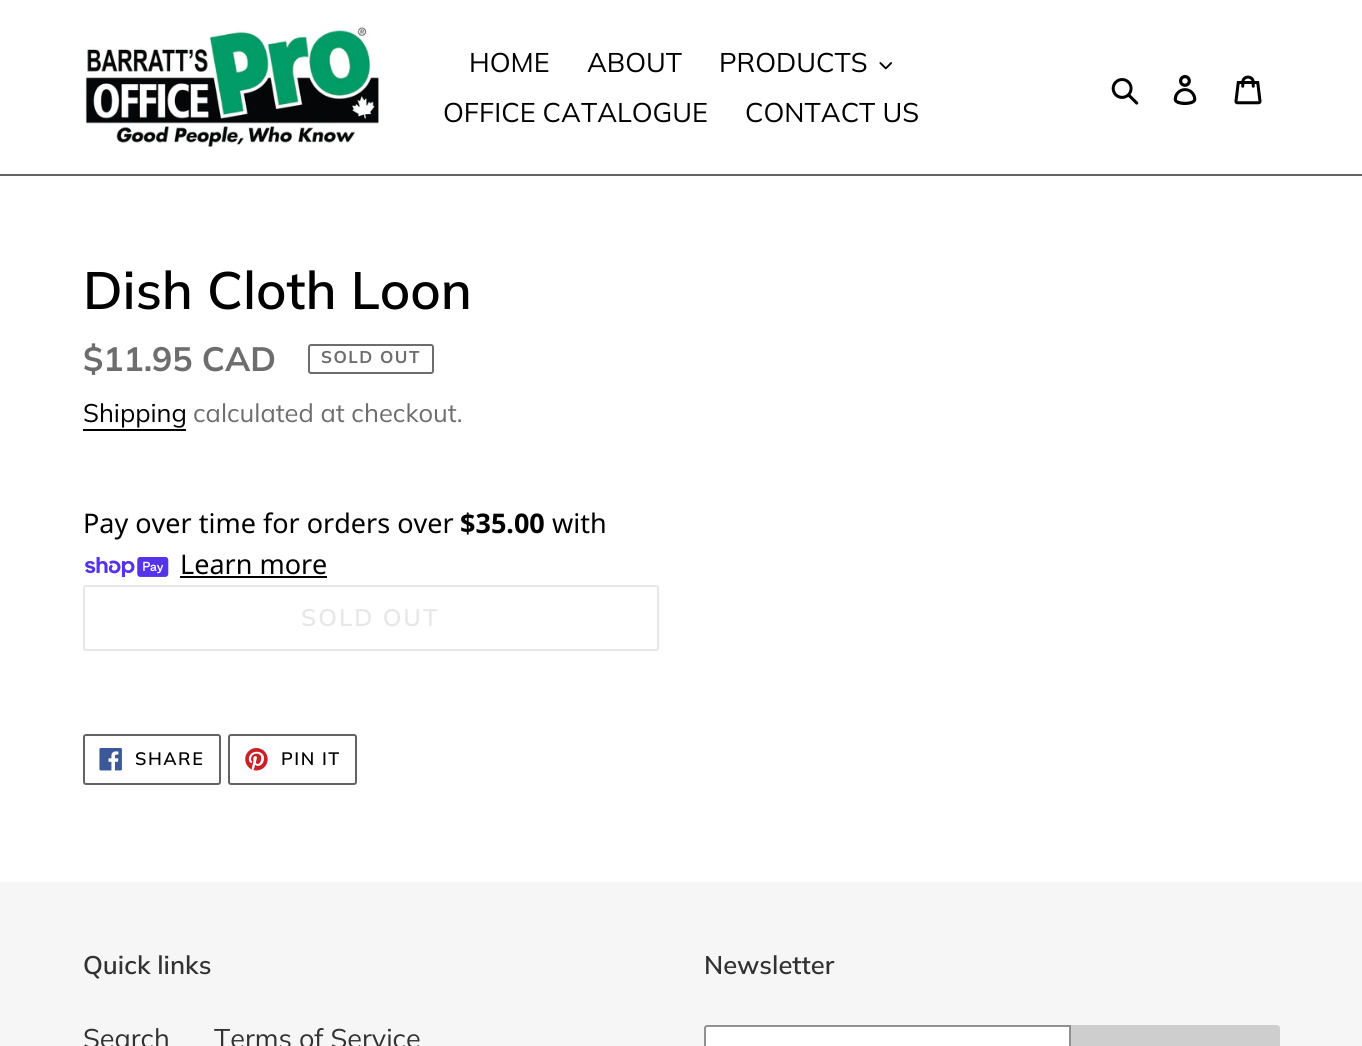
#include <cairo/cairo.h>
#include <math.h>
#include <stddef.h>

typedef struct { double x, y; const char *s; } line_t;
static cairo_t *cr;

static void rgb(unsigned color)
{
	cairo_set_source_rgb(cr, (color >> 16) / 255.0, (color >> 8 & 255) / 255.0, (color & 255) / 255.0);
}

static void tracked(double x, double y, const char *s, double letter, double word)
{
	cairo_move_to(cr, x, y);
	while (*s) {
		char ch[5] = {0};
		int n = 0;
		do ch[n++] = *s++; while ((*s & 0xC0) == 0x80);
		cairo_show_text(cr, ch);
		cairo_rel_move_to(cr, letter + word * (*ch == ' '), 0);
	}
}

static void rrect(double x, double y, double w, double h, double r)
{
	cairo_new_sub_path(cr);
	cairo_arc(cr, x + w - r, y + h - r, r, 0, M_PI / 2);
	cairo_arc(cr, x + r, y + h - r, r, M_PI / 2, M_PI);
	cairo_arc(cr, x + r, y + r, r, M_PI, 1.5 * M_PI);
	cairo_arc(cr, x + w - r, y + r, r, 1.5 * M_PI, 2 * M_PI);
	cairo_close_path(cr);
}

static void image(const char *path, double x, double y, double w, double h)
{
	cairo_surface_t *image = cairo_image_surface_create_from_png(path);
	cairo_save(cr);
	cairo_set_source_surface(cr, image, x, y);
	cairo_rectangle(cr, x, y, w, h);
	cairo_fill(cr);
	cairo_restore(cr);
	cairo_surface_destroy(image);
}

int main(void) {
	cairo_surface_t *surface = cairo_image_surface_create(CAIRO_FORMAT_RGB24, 1362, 1046);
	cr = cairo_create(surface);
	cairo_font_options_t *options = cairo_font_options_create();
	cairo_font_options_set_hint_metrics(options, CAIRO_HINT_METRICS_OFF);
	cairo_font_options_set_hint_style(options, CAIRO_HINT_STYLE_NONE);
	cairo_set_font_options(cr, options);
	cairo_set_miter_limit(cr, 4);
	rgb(0xffffff);
	cairo_paint(cr);
	rgb(0x636363);
	cairo_rectangle(cr, 0, 174, 1362, 2);
	cairo_fill(cr);
	image("img/1.png", 85, 27, 295, 120);
	image("img/2.png", 879, 62, 13, 8);
	image("img/3.png", 1111, 78, 28, 27);
	image("img/4.png", 1173, 75, 24, 30);
	image("img/5.png", 1234, 75, 28, 30);
	rrect(309, 345, 124, 28, 2);
	rgb(0x6d6d6d);
	cairo_stroke(cr);
	rgb(0x000000);
	cairo_rectangle(cr, 83, 429, 103, 2);
	cairo_fill(cr);
	image("img/6.png", 85, 557, 84, 21);
	cairo_rectangle(cr, 180, 576, 147, 2);
	cairo_fill(cr);
	rrect(84, 586, 574, 64, 2);
	rgb(0xe7e7e7);
	cairo_stroke(cr);
	rrect(84, 735, 136, 49, 2);
	rgb(0x636363);
	cairo_stroke(cr);
	image("img/7.png", 99, 748, 23, 23);
	rrect(229, 735, 127, 49, 2);
	cairo_stroke(cr);
	image("img/8.png", 245, 748, 23, 23);
	rgb(0xf6f6f6);
	cairo_rectangle(cr, 0, 882, 1362, 164);
	cairo_fill(cr);
	rgb(0xffffff);
	cairo_new_path(cr);
	cairo_move_to(cr, 707, 1026);
	cairo_line_to(cr, 1070, 1026);
	cairo_line_to(cr, 1070, 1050);
	cairo_line_to(cr, 707, 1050);
	cairo_curve_to(cr, 706, 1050, 705, 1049, 705, 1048);
	cairo_line_to(cr, 705, 1028);
	cairo_curve_to(cr, 705, 1027, 706, 1026, 707, 1026);
	cairo_close_path(cr);
	cairo_fill_preserve(cr);
	rgb(0x909090);
	cairo_stroke(cr);
	rgb(0xcecece);
	cairo_new_path(cr);
	cairo_move_to(cr, 1071, 1025);
	cairo_line_to(cr, 1277, 1025);
	cairo_curve_to(cr, 1278.5, 1025, 1280, 1026.5, 1280, 1028);
	cairo_line_to(cr, 1280, 1046);
	cairo_curve_to(cr, 1280, 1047.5, 1278.5, 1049, 1277, 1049);
	cairo_line_to(cr, 1071, 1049);
	cairo_close_path(cr);
	cairo_fill(cr);
	cairo_select_font_face(cr, "Muli", CAIRO_FONT_SLANT_NORMAL, CAIRO_FONT_WEIGHT_NORMAL);
	cairo_set_font_size(cr, 27);
	rgb(0x000000);
	{
		static const line_t items[] = {
			{469, 72, "HOME"},
			{587, 72, "ABOUT"},
			{719, 72, "PRODUCTS"},
			{443, 122, "OFFICE CATALOGUE"},
			{745, 122, "CONTACT US"},
		};
		for (size_t i = 0; i < sizeof items / sizeof *items; i++) {
			cairo_move_to(cr, items[i].x, items[i].y);
			cairo_show_text(cr, items[i].s);
		}
	}
	cairo_select_font_face(cr, "Muli SemiBold", CAIRO_FONT_SLANT_NORMAL, CAIRO_FONT_WEIGHT_NORMAL);
	cairo_set_font_size(cr, 52.5);
	cairo_move_to(cr, 83, 309);
	cairo_show_text(cr, "Dish Cloth Loon");
	cairo_select_font_face(cr, "Muli", CAIRO_FONT_SLANT_NORMAL, CAIRO_FONT_WEIGHT_BOLD);
	cairo_set_font_size(cr, 33.75);
	rgb(0x6d6d6d);
	cairo_move_to(cr, 83, 371);
	cairo_show_text(cr, "$11.95 CAD");
	cairo_set_font_size(cr, 17);
	tracked(321, 363, "SOLD OUT", 1.5, 0);
	cairo_select_font_face(cr, "Muli", CAIRO_FONT_SLANT_NORMAL, CAIRO_FONT_WEIGHT_NORMAL);
	cairo_set_font_size(cr, 25.5);
	rgb(0x000000);
	cairo_move_to(cr, 83, 422);
	cairo_show_text(cr, "Shipping");
	rgb(0x6d6d6d);
	cairo_move_to(cr, 193, 422);
	cairo_show_text(cr, "calculated at checkout.");
	cairo_select_font_face(cr, "Noto Sans", CAIRO_FONT_SLANT_NORMAL, CAIRO_FONT_WEIGHT_NORMAL);
	cairo_set_font_size(cr, 27);
	rgb(0x000000);
	cairo_move_to(cr, 83, 533);
	cairo_show_text(cr, "Pay over time for orders over");
	cairo_select_font_face(cr, "Noto Sans", CAIRO_FONT_SLANT_NORMAL, CAIRO_FONT_WEIGHT_BOLD);
	cairo_move_to(cr, 460, 533);
	cairo_show_text(cr, "$35.00");
	cairo_select_font_face(cr, "Noto Sans", CAIRO_FONT_SLANT_NORMAL, CAIRO_FONT_WEIGHT_NORMAL);
	cairo_move_to(cr, 552, 533);
	cairo_show_text(cr, "with");
	cairo_move_to(cr, 180, 574);
	cairo_show_text(cr, "Learn more");
	cairo_select_font_face(cr, "Muli SemiBold", CAIRO_FONT_SLANT_NORMAL, CAIRO_FONT_WEIGHT_NORMAL);
	cairo_set_font_size(cr, 24);
	rgb(0xe7e7e7);
	tracked(301, 626, "SOLD OUT", 2, 0);
	cairo_set_font_size(cr, 18);
	rgb(0x000000);
	tracked(135, 765, "SHARE", 1.5, 0);
	tracked(281, 765, "PIN IT", 1.5, 0);
	cairo_set_font_size(cr, 25.5);
	rgb(0x333232);
	cairo_move_to(cr, 83, 974);
	cairo_show_text(cr, "Quick links");
	cairo_select_font_face(cr, "Muli", CAIRO_FONT_SLANT_NORMAL, CAIRO_FONT_WEIGHT_NORMAL);
	cairo_set_font_size(cr, 27);
	cairo_move_to(cr, 83, 1048);
	cairo_show_text(cr, "Search");
	cairo_move_to(cr, 214, 1048);
	cairo_show_text(cr, "Terms of Service");
	cairo_select_font_face(cr, "Muli SemiBold", CAIRO_FONT_SLANT_NORMAL, CAIRO_FONT_WEIGHT_NORMAL);
	cairo_set_font_size(cr, 25.5);
	cairo_move_to(cr, 704, 974);
	cairo_show_text(cr, "Newsletter");
	cairo_surface_write_to_png(surface, "page.png");
	cairo_font_options_destroy(options);
	cairo_destroy(cr);
	cairo_surface_destroy(surface);
	return 0;
}
